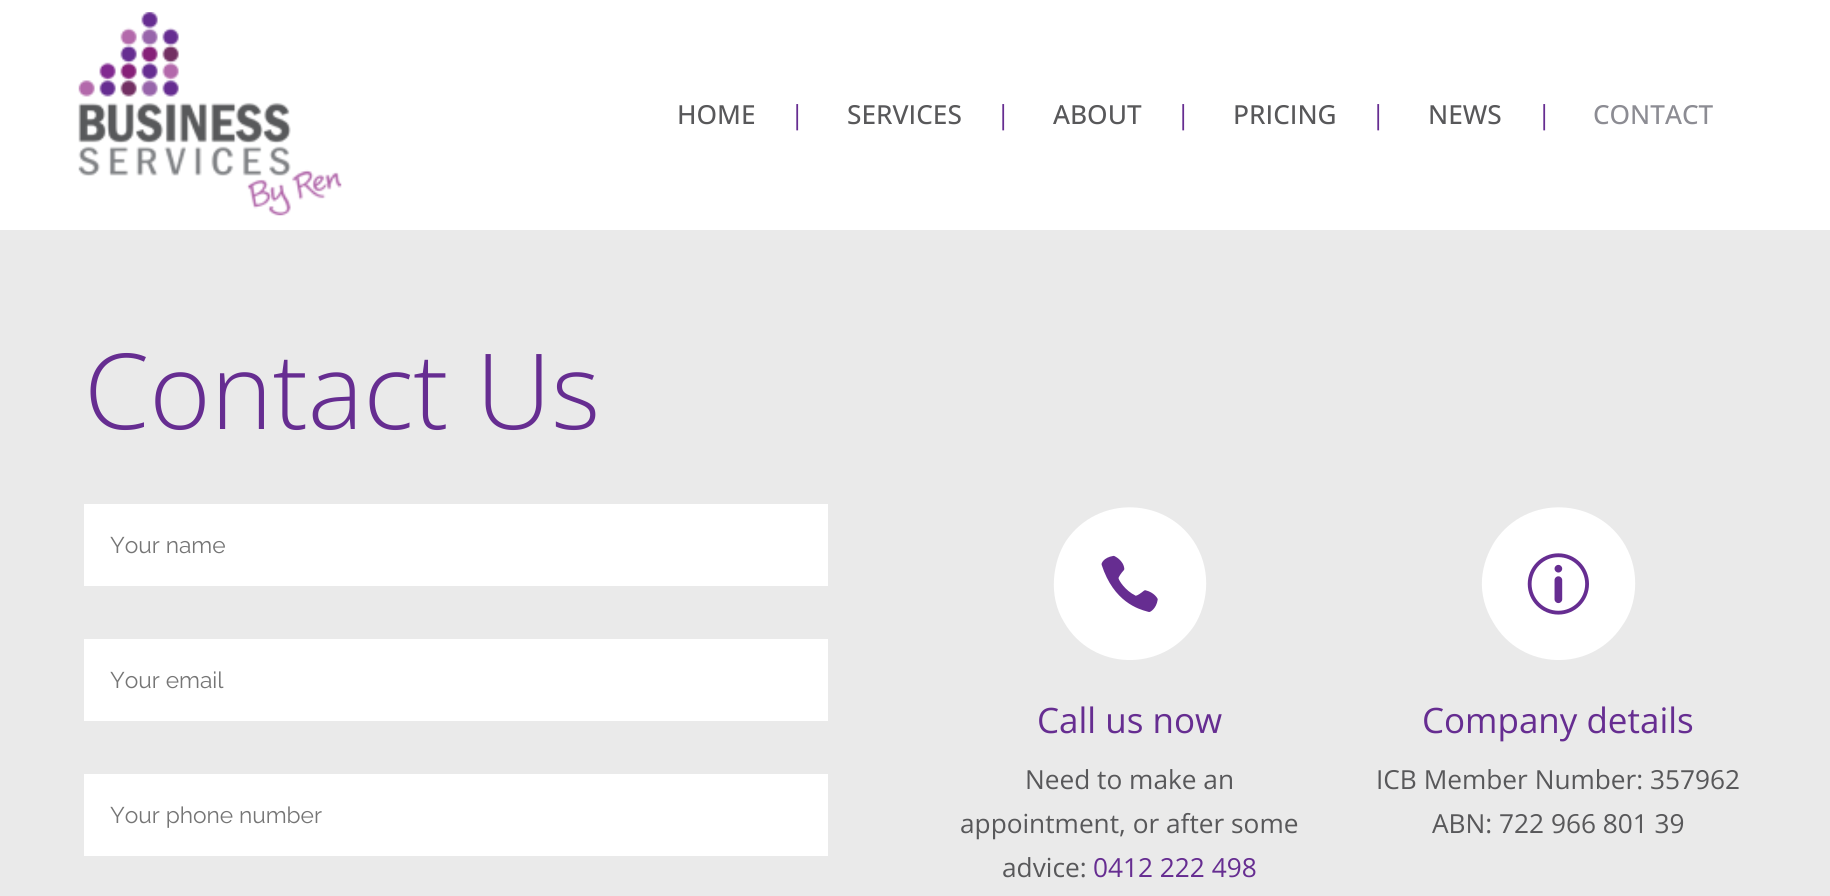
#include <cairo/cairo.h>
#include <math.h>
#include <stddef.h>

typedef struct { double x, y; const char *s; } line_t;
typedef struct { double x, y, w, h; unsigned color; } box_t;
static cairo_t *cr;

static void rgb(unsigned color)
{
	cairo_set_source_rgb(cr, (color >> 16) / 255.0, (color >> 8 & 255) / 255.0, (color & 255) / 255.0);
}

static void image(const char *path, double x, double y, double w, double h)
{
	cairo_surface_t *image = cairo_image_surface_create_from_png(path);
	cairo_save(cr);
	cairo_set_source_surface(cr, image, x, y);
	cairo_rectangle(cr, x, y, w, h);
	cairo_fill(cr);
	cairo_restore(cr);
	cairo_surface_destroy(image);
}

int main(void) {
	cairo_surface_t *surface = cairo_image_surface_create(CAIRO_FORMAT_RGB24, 1830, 896);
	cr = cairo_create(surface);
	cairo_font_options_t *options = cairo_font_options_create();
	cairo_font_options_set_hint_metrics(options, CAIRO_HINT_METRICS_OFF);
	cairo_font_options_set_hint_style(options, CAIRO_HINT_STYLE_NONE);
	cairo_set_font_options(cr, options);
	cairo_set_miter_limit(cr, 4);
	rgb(0xffffff);
	cairo_paint(cr);
	image("img/1.png", 78, 12, 264, 204);
	{
		static const box_t items[] = {
			{0, 230, 1830, 666, 0xeaeaea},
			{84, 504, 744, 82, 0xffffff},
			{84, 639, 744, 82, 0xffffff},
			{84, 774, 744, 82, 0xffffff},
		};
		for (size_t i = 0; i < sizeof items / sizeof *items; i++) {
			rgb(items[i].color);
			cairo_rectangle(cr, items[i].x, items[i].y, items[i].w, items[i].h);
			cairo_fill(cr);
		}
	}
	cairo_new_path(cr);
	cairo_move_to(cr, 1196, 545);
	cairo_curve_to(cr, 1204, 559, 1207, 574, 1206, 589);
	cairo_curve_to(cr, 1205, 602, 1201, 615, 1194, 626);
	cairo_curve_to(cr, 1162, 673, 1092, 671, 1064, 622);
	cairo_curve_to(cr, 1056, 609, 1053, 594, 1054, 579);
	cairo_curve_to(cr, 1055, 565, 1059, 552, 1066, 541);
	cairo_curve_to(cr, 1098, 494, 1168, 497, 1196, 545);
	cairo_close_path(cr);
	cairo_fill(cr);
	image("img/2.png", 1101, 555, 57, 57);
	cairo_new_path(cr);
	cairo_move_to(cr, 1625, 545);
	cairo_curve_to(cr, 1633, 559, 1636, 574, 1635, 589);
	cairo_curve_to(cr, 1634, 602, 1630, 615, 1622, 626);
	cairo_curve_to(cr, 1591, 673, 1521, 671, 1493, 622);
	cairo_curve_to(cr, 1485, 609, 1481, 594, 1482, 579);
	cairo_curve_to(cr, 1483, 565, 1488, 552, 1495, 541);
	cairo_curve_to(cr, 1527, 494, 1597, 497, 1625, 545);
	cairo_close_path(cr);
	cairo_fill(cr);
	image("img/3.png", 1527, 553, 62, 62);
	cairo_select_font_face(cr, "Open Sans Medium", CAIRO_FONT_SLANT_NORMAL, CAIRO_FONT_WEIGHT_NORMAL);
	cairo_set_font_size(cr, 26.25);
	rgb(0x58585a);
	cairo_move_to(cr, 677, 124);
	cairo_show_text(cr, "HOME");
	cairo_select_font_face(cr, "Open Sans", CAIRO_FONT_SLANT_NORMAL, CAIRO_FONT_WEIGHT_NORMAL);
	rgb(0x662d91);
	cairo_move_to(cr, 790, 124);
	cairo_show_text(cr, "|");
	cairo_select_font_face(cr, "Open Sans Medium", CAIRO_FONT_SLANT_NORMAL, CAIRO_FONT_WEIGHT_NORMAL);
	rgb(0x58585a);
	cairo_move_to(cr, 847, 124);
	cairo_show_text(cr, "SERVICES");
	cairo_select_font_face(cr, "Open Sans", CAIRO_FONT_SLANT_NORMAL, CAIRO_FONT_WEIGHT_NORMAL);
	rgb(0x662d91);
	cairo_move_to(cr, 996, 124);
	cairo_show_text(cr, "|");
	cairo_select_font_face(cr, "Open Sans Medium", CAIRO_FONT_SLANT_NORMAL, CAIRO_FONT_WEIGHT_NORMAL);
	rgb(0x58585a);
	cairo_move_to(cr, 1053, 124);
	cairo_show_text(cr, "ABOUT");
	cairo_select_font_face(cr, "Open Sans", CAIRO_FONT_SLANT_NORMAL, CAIRO_FONT_WEIGHT_NORMAL);
	rgb(0x662d91);
	cairo_move_to(cr, 1176, 124);
	cairo_show_text(cr, "|");
	cairo_select_font_face(cr, "Open Sans Medium", CAIRO_FONT_SLANT_NORMAL, CAIRO_FONT_WEIGHT_NORMAL);
	rgb(0x58585a);
	cairo_move_to(cr, 1233, 124);
	cairo_show_text(cr, "PRICING");
	cairo_select_font_face(cr, "Open Sans", CAIRO_FONT_SLANT_NORMAL, CAIRO_FONT_WEIGHT_NORMAL);
	rgb(0x662d91);
	cairo_move_to(cr, 1371, 124);
	cairo_show_text(cr, "|");
	cairo_select_font_face(cr, "Open Sans Medium", CAIRO_FONT_SLANT_NORMAL, CAIRO_FONT_WEIGHT_NORMAL);
	rgb(0x58585a);
	cairo_move_to(cr, 1428, 124);
	cairo_show_text(cr, "NEWS");
	cairo_select_font_face(cr, "Open Sans", CAIRO_FONT_SLANT_NORMAL, CAIRO_FONT_WEIGHT_NORMAL);
	rgb(0x662d91);
	cairo_move_to(cr, 1537, 124);
	cairo_show_text(cr, "|");
	cairo_select_font_face(cr, "Open Sans Medium", CAIRO_FONT_SLANT_NORMAL, CAIRO_FONT_WEIGHT_NORMAL);
	rgb(0x8c8c93);
	cairo_move_to(cr, 1593, 124);
	cairo_show_text(cr, "CONTACT");
	cairo_select_font_face(cr, "Open Sans Light", CAIRO_FONT_SLANT_NORMAL, CAIRO_FONT_WEIGHT_NORMAL);
	cairo_set_font_size(cr, 105);
	rgb(0x662d91);
	cairo_move_to(cr, 84, 429);
	cairo_show_text(cr, "Contact Us");
	cairo_select_font_face(cr, "Raleway", CAIRO_FONT_SLANT_NORMAL, CAIRO_FONT_WEIGHT_NORMAL);
	cairo_set_font_size(cr, 22.75);
	rgb(0x757575);
	{
		static const line_t items[] = {
			{110, 553, "Your name"},
			{110, 688, "Your email"},
			{110, 823, "Your phone number"},
		};
		for (size_t i = 0; i < sizeof items / sizeof *items; i++) {
			cairo_move_to(cr, items[i].x, items[i].y);
			cairo_show_text(cr, items[i].s);
		}
	}
	cairo_select_font_face(cr, "Open Sans", CAIRO_FONT_SLANT_NORMAL, CAIRO_FONT_WEIGHT_NORMAL);
	cairo_set_font_size(cr, 35);
	rgb(0x662d91);
	cairo_move_to(cr, 1037, 733);
	cairo_show_text(cr, "Call us now");
	cairo_set_font_size(cr, 26.25);
	rgb(0x58585a);
	{
		static const line_t items[] = {
			{1025, 789, "Need to make an"},
			{960, 833, "appointment, or after some"},
			{1002, 877, "advice:"},
		};
		for (size_t i = 0; i < sizeof items / sizeof *items; i++) {
			cairo_move_to(cr, items[i].x, items[i].y);
			cairo_show_text(cr, items[i].s);
		}
	}
	rgb(0x662d91);
	cairo_move_to(cr, 1093, 877);
	cairo_show_text(cr, "0412 222 498");
	cairo_set_font_size(cr, 35);
	cairo_move_to(cr, 1422, 733);
	cairo_show_text(cr, "Company details");
	cairo_set_font_size(cr, 26.25);
	rgb(0x58585a);
	cairo_move_to(cr, 1376, 789);
	cairo_show_text(cr, "ICB Member Number: 357962");
	cairo_move_to(cr, 1432, 833);
	cairo_show_text(cr, "ABN: 722 966 801 39");
	cairo_surface_write_to_png(surface, "page.png");
	cairo_font_options_destroy(options);
	cairo_destroy(cr);
	cairo_surface_destroy(surface);
	return 0;
}
